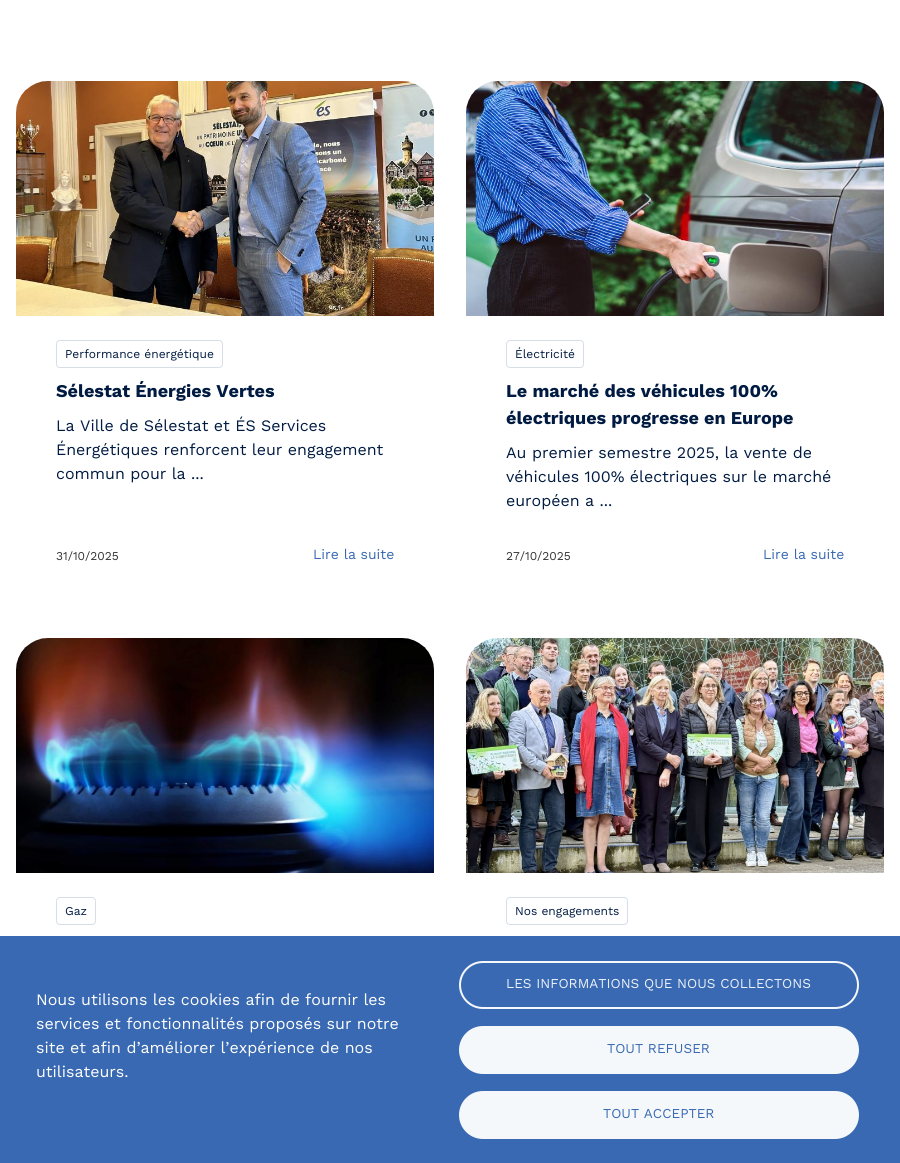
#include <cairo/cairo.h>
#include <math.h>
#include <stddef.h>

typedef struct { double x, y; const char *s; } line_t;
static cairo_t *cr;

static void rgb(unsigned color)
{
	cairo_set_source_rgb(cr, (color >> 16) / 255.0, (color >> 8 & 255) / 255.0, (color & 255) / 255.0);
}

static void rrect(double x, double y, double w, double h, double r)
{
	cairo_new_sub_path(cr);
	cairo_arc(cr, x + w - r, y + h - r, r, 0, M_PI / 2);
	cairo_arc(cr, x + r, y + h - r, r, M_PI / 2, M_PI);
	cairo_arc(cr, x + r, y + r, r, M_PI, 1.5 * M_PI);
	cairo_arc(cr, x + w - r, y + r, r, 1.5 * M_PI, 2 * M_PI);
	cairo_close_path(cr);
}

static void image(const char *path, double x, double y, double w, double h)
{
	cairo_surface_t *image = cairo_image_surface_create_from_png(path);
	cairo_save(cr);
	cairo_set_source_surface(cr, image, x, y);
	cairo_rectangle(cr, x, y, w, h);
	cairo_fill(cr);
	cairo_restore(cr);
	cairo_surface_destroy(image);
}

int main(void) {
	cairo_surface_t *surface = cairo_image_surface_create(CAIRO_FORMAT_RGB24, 900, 1163);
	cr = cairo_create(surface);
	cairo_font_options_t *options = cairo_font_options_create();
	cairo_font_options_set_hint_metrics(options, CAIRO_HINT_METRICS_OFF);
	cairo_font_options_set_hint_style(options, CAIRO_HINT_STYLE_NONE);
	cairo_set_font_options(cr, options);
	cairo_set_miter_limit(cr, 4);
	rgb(0xffffff);
	cairo_paint(cr);
	image("img/1.png", 16, 81, 418, 235);
	rrect(56.5, 340.5, 166, 27, 3.5);
	rgb(0xd6dfe8);
	cairo_set_line_width(cr, 1);
	cairo_stroke(cr);
	image("img/2.png", 466, 81, 418, 235);
	rrect(506.5, 340.5, 77, 27, 3.5);
	cairo_stroke(cr);
	image("img/3.png", 16, 638, 418, 235);
	rrect(56.5, 897.5, 39, 27, 3.5);
	cairo_stroke(cr);
	image("img/4.png", 466, 638, 418, 235);
	rrect(506.5, 897.5, 121, 27, 3.5);
	cairo_stroke(cr);
	rgb(0x3869b2);
	cairo_rectangle(cr, 0, 936, 900, 227);
	cairo_fill(cr);
	rrect(460, 962, 398, 46, 23);
	rgb(0xf5f8fb);
	cairo_set_line_width(cr, 2);
	cairo_stroke(cr);
	rrect(460, 1027, 398, 46, 23);
	cairo_fill_preserve(cr);
	cairo_stroke(cr);
	rrect(460, 1092, 398, 46, 23);
	cairo_fill_preserve(cr);
	cairo_stroke(cr);
	cairo_select_font_face(cr, "Work Sans", CAIRO_FONT_SLANT_NORMAL, CAIRO_FONT_WEIGHT_NORMAL);
	cairo_set_font_size(cr, 12);
	rgb(0x001a41);
	cairo_move_to(cr, 65, 358);
	cairo_show_text(cr, "Performance énergétique");
	cairo_select_font_face(cr, "Work Sans", CAIRO_FONT_SLANT_NORMAL, CAIRO_FONT_WEIGHT_BOLD);
	cairo_set_font_size(cr, 18);
	cairo_move_to(cr, 56, 397);
	cairo_show_text(cr, "Sélestat Énergies Vertes");
	cairo_select_font_face(cr, "Work Sans", CAIRO_FONT_SLANT_NORMAL, CAIRO_FONT_WEIGHT_NORMAL);
	cairo_set_font_size(cr, 16);
	{
		static const line_t items[] = {
			{56, 431, "La Ville de Sélestat et ÉS Services"},
			{56, 455, "Énergétiques renforcent leur engagement"},
			{56, 479, "commun pour la ..."},
		};
		for (size_t i = 0; i < sizeof items / sizeof *items; i++) {
			cairo_move_to(cr, items[i].x, items[i].y);
			cairo_show_text(cr, items[i].s);
		}
	}
	cairo_set_font_size(cr, 12);
	rgb(0x333333);
	cairo_move_to(cr, 56, 560);
	cairo_show_text(cr, "31/10/2025");
	cairo_set_font_size(cr, 14);
	rgb(0x3869b2);
	cairo_move_to(cr, 313, 559);
	cairo_show_text(cr, "Lire la suite");
	cairo_set_font_size(cr, 12);
	rgb(0x001a41);
	cairo_move_to(cr, 515, 358);
	cairo_show_text(cr, "Électricité");
	cairo_select_font_face(cr, "Work Sans", CAIRO_FONT_SLANT_NORMAL, CAIRO_FONT_WEIGHT_BOLD);
	cairo_set_font_size(cr, 18);
	cairo_move_to(cr, 506, 397);
	cairo_show_text(cr, "Le marché des véhicules 100%");
	cairo_move_to(cr, 506, 424);
	cairo_show_text(cr, "électriques progresse en Europe");
	cairo_select_font_face(cr, "Work Sans", CAIRO_FONT_SLANT_NORMAL, CAIRO_FONT_WEIGHT_NORMAL);
	cairo_set_font_size(cr, 16);
	{
		static const line_t items[] = {
			{506, 458, "Au premier semestre 2025, la vente de"},
			{506, 482, "véhicules 100% électriques sur le marché"},
			{506, 506, "européen a ..."},
		};
		for (size_t i = 0; i < sizeof items / sizeof *items; i++) {
			cairo_move_to(cr, items[i].x, items[i].y);
			cairo_show_text(cr, items[i].s);
		}
	}
	cairo_set_font_size(cr, 12);
	rgb(0x333333);
	cairo_move_to(cr, 506, 560);
	cairo_show_text(cr, "27/10/2025");
	cairo_set_font_size(cr, 14);
	rgb(0x3869b2);
	cairo_move_to(cr, 763, 559);
	cairo_show_text(cr, "Lire la suite");
	cairo_set_font_size(cr, 12);
	rgb(0x001a41);
	cairo_move_to(cr, 65, 915);
	cairo_show_text(cr, "Gaz");
	cairo_move_to(cr, 515, 915);
	cairo_show_text(cr, "Nos engagements");
	cairo_set_font_size(cr, 16);
	rgb(0xffffff);
	{
		static const line_t items[] = {
			{36, 1005, "Nous utilisons les cookies afin de fournir les"},
			{36, 1029, "services et fonctionnalités proposés sur notre"},
			{36, 1053, "site et afin d’améliorer l’expérience de nos"},
			{36, 1077, "utilisateurs."},
		};
		for (size_t i = 0; i < sizeof items / sizeof *items; i++) {
			cairo_move_to(cr, items[i].x, items[i].y);
			cairo_show_text(cr, items[i].s);
		}
	}
	cairo_set_font_size(cr, 13.6);
	rgb(0xebf0f7);
	cairo_move_to(cr, 506, 988);
	cairo_show_text(cr, "LES INFORMATIONS QUE NOUS COLLECTONS");
	rgb(0x3869b2);
	cairo_move_to(cr, 607, 1053);
	cairo_show_text(cr, "TOUT REFUSER");
	cairo_move_to(cr, 603, 1118);
	cairo_show_text(cr, "TOUT ACCEPTER");
	cairo_surface_write_to_png(surface, "page.png");
	cairo_font_options_destroy(options);
	cairo_destroy(cr);
	cairo_surface_destroy(surface);
	return 0;
}
